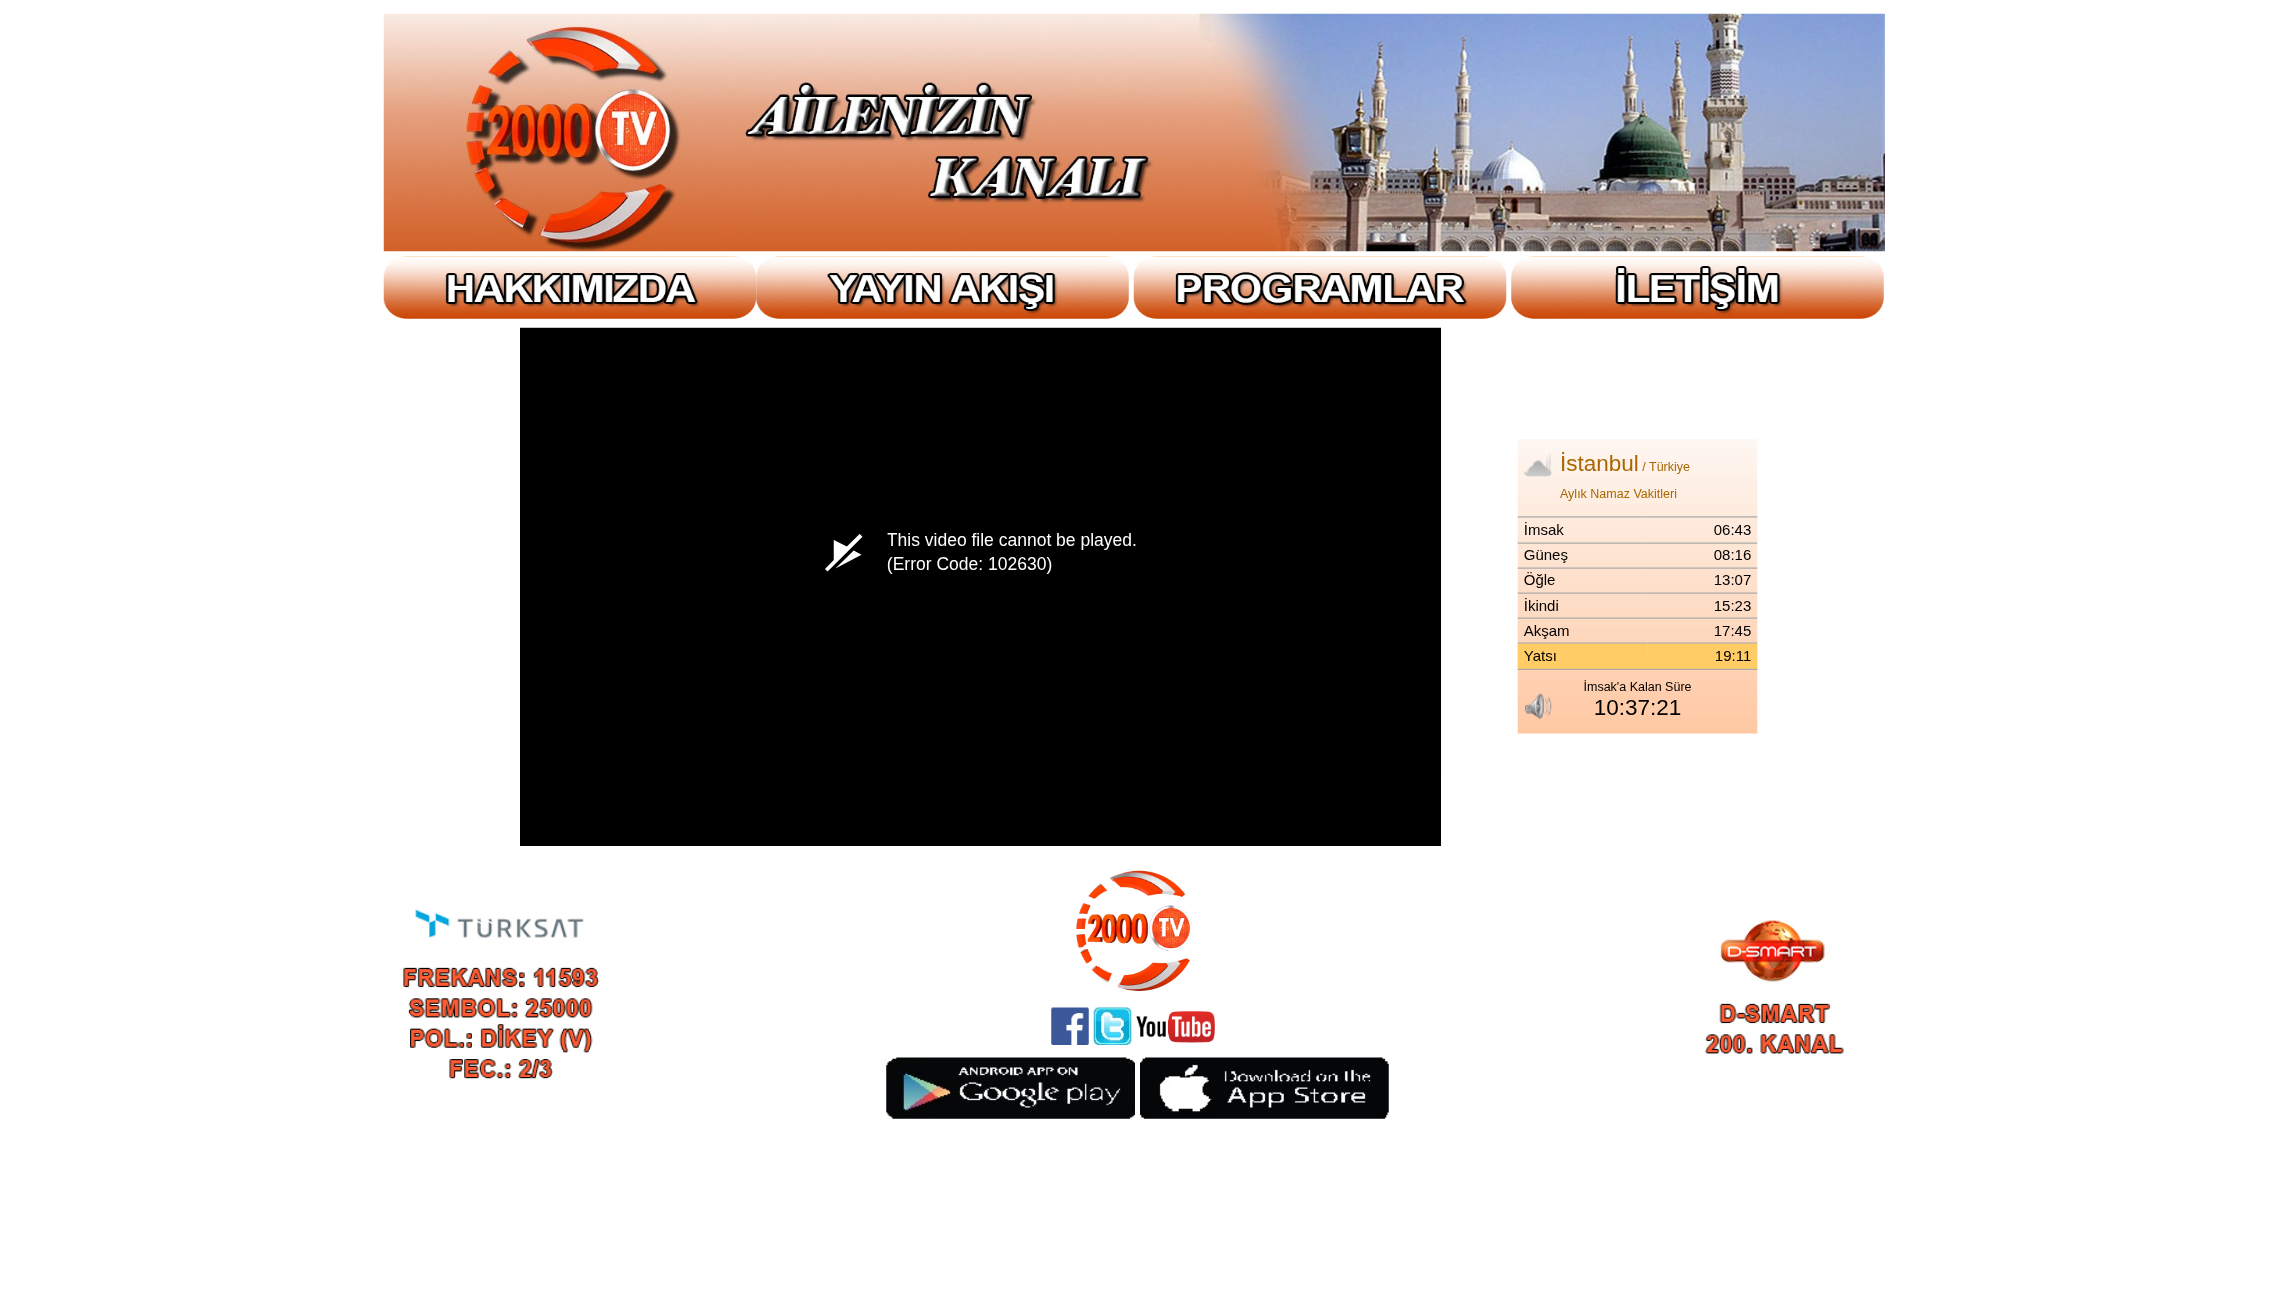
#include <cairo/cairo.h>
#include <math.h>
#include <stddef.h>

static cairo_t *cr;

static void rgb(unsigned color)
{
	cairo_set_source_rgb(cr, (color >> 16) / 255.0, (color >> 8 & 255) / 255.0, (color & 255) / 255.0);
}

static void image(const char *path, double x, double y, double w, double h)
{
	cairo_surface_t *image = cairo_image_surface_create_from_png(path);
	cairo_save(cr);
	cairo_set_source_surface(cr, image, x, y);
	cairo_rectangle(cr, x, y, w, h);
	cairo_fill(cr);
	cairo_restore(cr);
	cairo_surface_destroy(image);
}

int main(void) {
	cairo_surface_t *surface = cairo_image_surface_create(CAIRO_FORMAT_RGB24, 2277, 1316);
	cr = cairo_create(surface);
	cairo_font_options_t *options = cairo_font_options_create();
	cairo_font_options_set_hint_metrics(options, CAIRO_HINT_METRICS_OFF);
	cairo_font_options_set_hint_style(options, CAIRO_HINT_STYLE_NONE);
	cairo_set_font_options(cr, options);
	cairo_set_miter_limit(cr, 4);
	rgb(0xffffff);
	cairo_paint(cr);
	image("img/1.png", 383, 13, 1502, 239);
	image("img/2.png", 383, 256, 374, 63);
	image("img/3.png", 756, 256, 373, 63);
	image("img/4.png", 1133, 256, 374, 63);
	image("img/5.png", 1511, 256, 373, 63);
	image("img/6.png", 520, 327, 922, 519);
	image("img/7.png", 1517, 439, 241, 295);
	image("img/8.png", 403, 909, 197, 170);
	image("img/9.png", 1076, 870, 117, 121);
	image("img/10.png", 1051, 1007, 38, 38);
	image("img/11.png", 1093, 1007, 39, 38);
	image("img/12.png", 1136, 1011, 79, 32);
	image("img/13.png", 886, 1057, 249, 62);
	image("img/14.png", 1140, 1057, 249, 62);
	image("img/15.png", 1705, 920, 139, 134);
	cairo_surface_write_to_png(surface, "page.png");
	cairo_font_options_destroy(options);
	cairo_destroy(cr);
	cairo_surface_destroy(surface);
	return 0;
}
